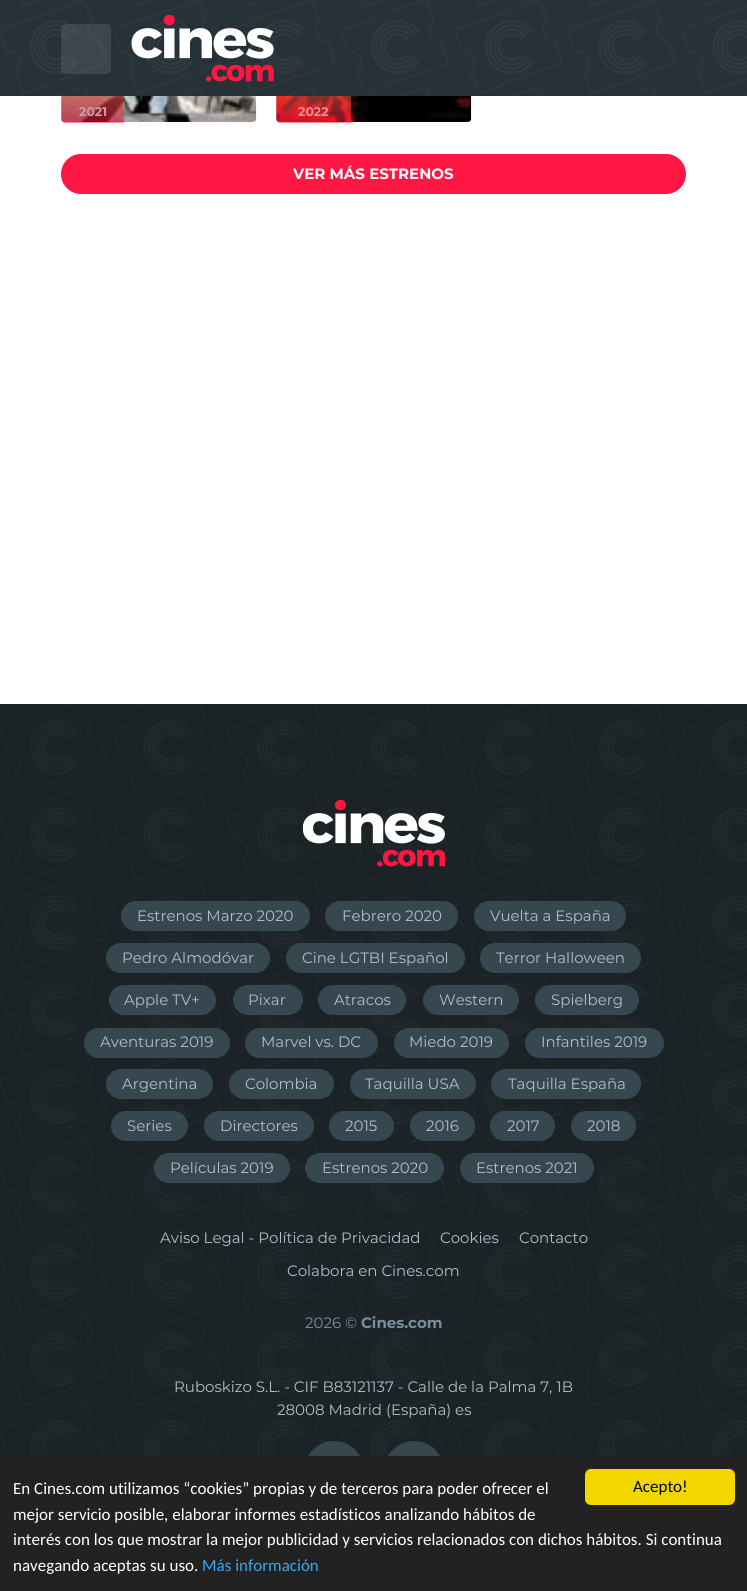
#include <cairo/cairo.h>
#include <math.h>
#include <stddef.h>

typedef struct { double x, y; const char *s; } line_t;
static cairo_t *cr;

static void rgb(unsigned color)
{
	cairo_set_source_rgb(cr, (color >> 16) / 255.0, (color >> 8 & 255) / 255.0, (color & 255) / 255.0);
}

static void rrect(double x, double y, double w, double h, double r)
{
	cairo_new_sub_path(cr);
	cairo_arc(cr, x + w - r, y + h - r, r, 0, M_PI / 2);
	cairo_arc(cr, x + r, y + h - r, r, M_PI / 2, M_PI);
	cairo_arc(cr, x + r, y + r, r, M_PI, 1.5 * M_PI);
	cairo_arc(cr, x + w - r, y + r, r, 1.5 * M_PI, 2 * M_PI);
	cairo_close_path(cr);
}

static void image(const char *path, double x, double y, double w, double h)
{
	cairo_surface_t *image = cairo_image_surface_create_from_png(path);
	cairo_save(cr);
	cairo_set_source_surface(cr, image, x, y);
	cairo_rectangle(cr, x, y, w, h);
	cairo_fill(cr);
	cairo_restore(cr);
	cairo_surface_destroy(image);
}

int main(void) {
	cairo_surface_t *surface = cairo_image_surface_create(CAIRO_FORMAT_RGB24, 747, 1591);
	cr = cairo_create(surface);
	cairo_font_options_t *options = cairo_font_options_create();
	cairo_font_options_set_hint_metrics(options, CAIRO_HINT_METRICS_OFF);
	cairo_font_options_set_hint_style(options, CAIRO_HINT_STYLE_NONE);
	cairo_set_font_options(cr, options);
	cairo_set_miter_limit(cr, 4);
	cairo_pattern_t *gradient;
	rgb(0xffffff);
	cairo_paint(cr);
	image("img/1.png", 0, 704, 747, 752);
	image("img/4.png", 61, 96, 196, 26);
	gradient = cairo_pattern_create_linear(93, 58, 93, 123);
	cairo_pattern_add_color_stop_rgba(gradient, 0, 1, 0.776, 0.333, 0.5);
	cairo_pattern_add_color_stop_rgba(gradient, 1, 1, 0.09, 0.267, 0.5);
	cairo_set_source(cr, gradient);
	cairo_pattern_destroy(gradient);
	cairo_new_path(cr);
	cairo_move_to(cr, 61, 58);
	cairo_line_to(cr, 120, 58);
	cairo_curve_to(cr, 122, 58, 124, 60, 124, 62);
	cairo_line_to(cr, 124, 123);
	cairo_line_to(cr, 65, 123);
	cairo_curve_to(cr, 63, 123, 61, 121, 61, 119);
	cairo_close_path(cr);
	cairo_fill(cr);
	image("img/5.png", 276, 96, 196, 26);
	gradient = cairo_pattern_create_linear(314, 58, 314, 123);
	cairo_pattern_add_color_stop_rgba(gradient, 0, 1, 0.776, 0.333, 0.5);
	cairo_pattern_add_color_stop_rgba(gradient, 1, 1, 0.09, 0.267, 0.5);
	cairo_set_source(cr, gradient);
	cairo_pattern_destroy(gradient);
	cairo_new_path(cr);
	cairo_move_to(cr, 276, 58);
	cairo_line_to(cr, 347, 58);
	cairo_curve_to(cr, 349, 58, 351, 60, 351, 62);
	cairo_line_to(cr, 351, 123);
	cairo_line_to(cr, 280, 123);
	cairo_curve_to(cr, 278, 123, 276, 121, 276, 119);
	cairo_close_path(cr);
	cairo_fill(cr);
	image("img/2.png", 0, 0, 747, 96);
	cairo_set_source_rgba(cr, 1, 1, 1, 0.1);
	rrect(61, 24, 50, 50, 5);
	cairo_fill(cr);
	image("img/3.png", 131, 14, 143, 68);
	rgb(0xff1744);
	rrect(61, 154, 625, 40, 20);
	cairo_fill(cr);
	cairo_set_source_rgba(cr, 0, 0, 0, 0.3);
	cairo_rectangle(cr, 0, 704, 747, 752);
	cairo_fill(cr);
	image("img/6.png", 303, 799, 142, 68);
	rgb(0x37474f);
	rrect(121, 901, 189, 30, 15);
	cairo_fill(cr);
	rrect(325, 901, 133, 30, 15);
	cairo_fill(cr);
	rrect(474, 901, 152, 30, 15);
	cairo_fill(cr);
	rrect(106, 943, 164, 30, 15);
	cairo_fill(cr);
	rrect(286, 943, 179, 30, 15);
	cairo_fill(cr);
	rrect(480, 943, 161, 30, 15);
	cairo_fill(cr);
	rrect(109, 985, 107, 30, 15);
	cairo_fill(cr);
	rrect(233, 985, 70, 30, 15);
	cairo_fill(cr);
	rrect(318, 985, 88, 30, 15);
	cairo_fill(cr);
	rrect(423, 985, 96, 30, 15);
	cairo_fill(cr);
	rrect(535, 985, 104, 30, 15);
	cairo_fill(cr);
	rrect(84, 1028, 146, 30, 15);
	cairo_fill(cr);
	rrect(245, 1028, 133, 30, 15);
	cairo_fill(cr);
	rrect(394, 1028, 115, 30, 15);
	cairo_fill(cr);
	rrect(525, 1028, 139, 30, 15);
	cairo_fill(cr);
	rrect(106, 1069, 107, 30, 15);
	cairo_fill(cr);
	rrect(229, 1069, 105, 30, 15);
	cairo_fill(cr);
	rrect(350, 1069, 126, 30, 15);
	cairo_fill(cr);
	rrect(491, 1069, 150, 30, 15);
	cairo_fill(cr);
	rrect(111, 1111, 77, 30, 15);
	cairo_fill(cr);
	rrect(204, 1111, 110, 30, 15);
	cairo_fill(cr);
	rrect(329, 1111, 65, 30, 15);
	cairo_fill(cr);
	rrect(410, 1111, 65, 30, 15);
	cairo_fill(cr);
	rrect(490, 1111, 65, 30, 15);
	cairo_fill(cr);
	rrect(571, 1111, 65, 30, 15);
	cairo_fill(cr);
	rrect(154, 1153, 136, 30, 15);
	cairo_fill(cr);
	rrect(305, 1153, 139, 30, 15);
	cairo_fill(cr);
	rrect(460, 1153, 134, 30, 15);
	cairo_fill(cr);
	cairo_arc(cr, 334, 1471, 30, 0, 2 * M_PI);
	cairo_fill(cr);
	cairo_arc(cr, 414, 1471, 30, 0, 2 * M_PI);
	cairo_fill(cr);
	rgb(0x222222);
	cairo_rectangle(cr, 0, 1456, 747, 135);
	cairo_fill(cr);
	rgb(0xf1d600);
	rrect(585, 1469, 150, 36, 6);
	cairo_fill(cr);
	cairo_select_font_face(cr, "Montserrat", CAIRO_FONT_SLANT_NORMAL, CAIRO_FONT_WEIGHT_BOLD);
	cairo_set_font_size(cr, 12.5);
	rgb(0xd09ca1);
	cairo_move_to(cr, 79, 116);
	cairo_show_text(cr, "2021");
	rgb(0xe98e93);
	cairo_move_to(cr, 298, 116);
	cairo_show_text(cr, "2022");
	cairo_set_font_size(cr, 15);
	rgb(0xffffff);
	cairo_move_to(cr, 293, 179);
	cairo_show_text(cr, "VER MÁS ESTRENOS");
	cairo_select_font_face(cr, "Montserrat", CAIRO_FONT_SLANT_NORMAL, CAIRO_FONT_WEIGHT_NORMAL);
	rgb(0xb0bec5);
	{
		static const line_t items[] = {
			{137, 921, "Estrenos Marzo 2020"},
			{342, 921, "Febrero 2020"},
			{490, 921, "Vuelta a España"},
			{122, 963, "Pedro Almodóvar"},
			{302, 963, "Cine LGTBI Español"},
			{496, 963, "Terror Halloween"},
			{124, 1005, "Apple TV+"},
			{248, 1005, "Pixar"},
			{334, 1005, "Atracos"},
			{439, 1005, "Western"},
			{551, 1005, "Spielberg"},
			{100, 1047, "Aventuras 2019"},
			{261, 1047, "Marvel vs. DC"},
			{409, 1047, "Miedo 2019"},
			{541, 1047, "Infantiles 2019"},
			{122, 1089, "Argentina"},
			{245, 1089, "Colombia"},
			{365, 1089, "Taquilla USA"},
			{508, 1089, "Taquilla España"},
			{127, 1131, "Series"},
			{220, 1131, "Directores"},
			{345, 1131, "2015"},
			{426, 1131, "2016"},
			{507, 1131, "2017"},
			{587, 1131, "2018"},
			{170, 1173, "Películas 2019"},
			{322, 1173, "Estrenos 2020"},
			{476, 1173, "Estrenos 2021"},
			{160, 1243, "Aviso Legal - Política de Privacidad"},
			{440, 1243, "Cookies"},
			{519, 1243, "Contacto"},
			{287, 1276, "Colabora en Cines.com"},
		};
		for (size_t i = 0; i < sizeof items / sizeof *items; i++) {
			cairo_move_to(cr, items[i].x, items[i].y);
			cairo_show_text(cr, items[i].s);
		}
	}
	rgb(0x78909c);
	cairo_move_to(cr, 305, 1328);
	cairo_show_text(cr, "2026 ©");
	cairo_select_font_face(cr, "Montserrat", CAIRO_FONT_SLANT_NORMAL, CAIRO_FONT_WEIGHT_BOLD);
	cairo_move_to(cr, 361, 1328);
	cairo_show_text(cr, "Cines.com");
	cairo_select_font_face(cr, "Montserrat", CAIRO_FONT_SLANT_NORMAL, CAIRO_FONT_WEIGHT_NORMAL);
	rgb(0xb0bec5);
	cairo_move_to(cr, 174, 1392);
	cairo_show_text(cr, "Ruboskizo S.L. - CIF B83121137 - Calle de la Palma 7, 1B");
	cairo_move_to(cr, 277, 1415);
	cairo_show_text(cr, "28008 Madrid (España) es");
	cairo_select_font_face(cr, "Carlito", CAIRO_FONT_SLANT_NORMAL, CAIRO_FONT_WEIGHT_NORMAL);
	cairo_set_font_size(cr, 17);
	rgb(0x000000);
	cairo_move_to(cr, 633, 1492);
	cairo_show_text(cr, "Acepto!");
	rgb(0xffffff);
	{
		static const line_t items[] = {
			{13, 1494, "En Cines.com utilizamos “cookies” propias y de terceros para poder ofrecer el"},
			{13, 1520, "mejor servicio posible, elaborar informes estadísticos analizando hábitos de"},
			{13, 1545, "interés con los que mostrar la mejor publicidad y servicios relacionados con dichos hábitos. Si continua"},
			{13, 1571, "navegando aceptas su uso."},
		};
		for (size_t i = 0; i < sizeof items / sizeof *items; i++) {
			cairo_move_to(cr, items[i].x, items[i].y);
			cairo_show_text(cr, items[i].s);
		}
	}
	rgb(0x31a8f0);
	cairo_move_to(cr, 202, 1571);
	cairo_show_text(cr, "Más información");
	cairo_surface_write_to_png(surface, "page.png");
	cairo_font_options_destroy(options);
	cairo_destroy(cr);
	cairo_surface_destroy(surface);
	return 0;
}
